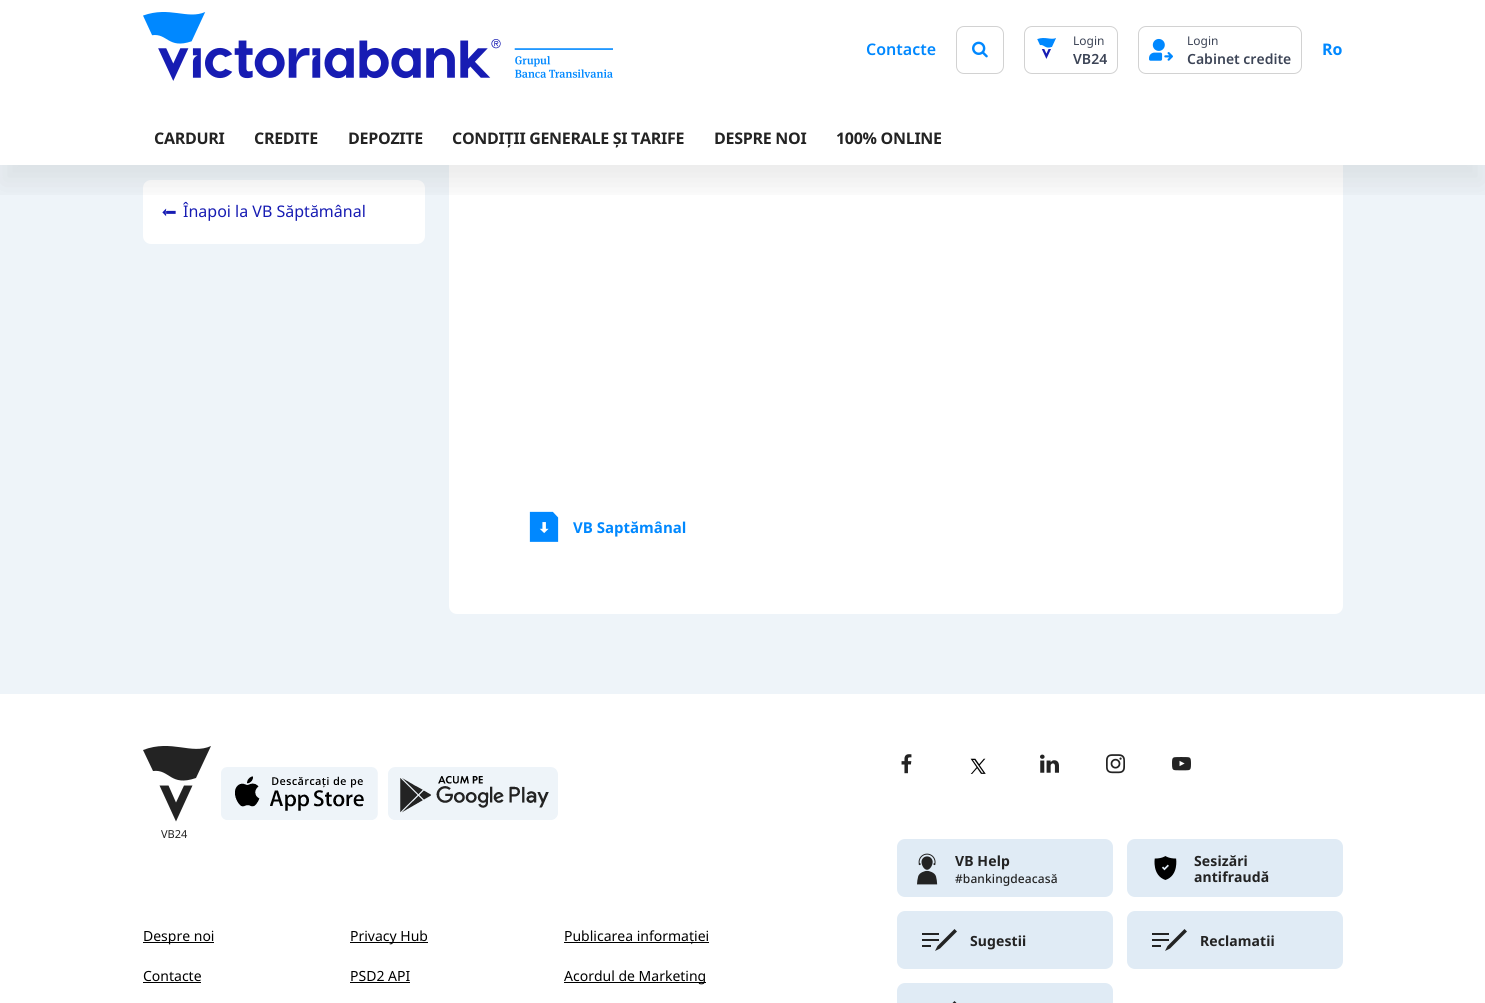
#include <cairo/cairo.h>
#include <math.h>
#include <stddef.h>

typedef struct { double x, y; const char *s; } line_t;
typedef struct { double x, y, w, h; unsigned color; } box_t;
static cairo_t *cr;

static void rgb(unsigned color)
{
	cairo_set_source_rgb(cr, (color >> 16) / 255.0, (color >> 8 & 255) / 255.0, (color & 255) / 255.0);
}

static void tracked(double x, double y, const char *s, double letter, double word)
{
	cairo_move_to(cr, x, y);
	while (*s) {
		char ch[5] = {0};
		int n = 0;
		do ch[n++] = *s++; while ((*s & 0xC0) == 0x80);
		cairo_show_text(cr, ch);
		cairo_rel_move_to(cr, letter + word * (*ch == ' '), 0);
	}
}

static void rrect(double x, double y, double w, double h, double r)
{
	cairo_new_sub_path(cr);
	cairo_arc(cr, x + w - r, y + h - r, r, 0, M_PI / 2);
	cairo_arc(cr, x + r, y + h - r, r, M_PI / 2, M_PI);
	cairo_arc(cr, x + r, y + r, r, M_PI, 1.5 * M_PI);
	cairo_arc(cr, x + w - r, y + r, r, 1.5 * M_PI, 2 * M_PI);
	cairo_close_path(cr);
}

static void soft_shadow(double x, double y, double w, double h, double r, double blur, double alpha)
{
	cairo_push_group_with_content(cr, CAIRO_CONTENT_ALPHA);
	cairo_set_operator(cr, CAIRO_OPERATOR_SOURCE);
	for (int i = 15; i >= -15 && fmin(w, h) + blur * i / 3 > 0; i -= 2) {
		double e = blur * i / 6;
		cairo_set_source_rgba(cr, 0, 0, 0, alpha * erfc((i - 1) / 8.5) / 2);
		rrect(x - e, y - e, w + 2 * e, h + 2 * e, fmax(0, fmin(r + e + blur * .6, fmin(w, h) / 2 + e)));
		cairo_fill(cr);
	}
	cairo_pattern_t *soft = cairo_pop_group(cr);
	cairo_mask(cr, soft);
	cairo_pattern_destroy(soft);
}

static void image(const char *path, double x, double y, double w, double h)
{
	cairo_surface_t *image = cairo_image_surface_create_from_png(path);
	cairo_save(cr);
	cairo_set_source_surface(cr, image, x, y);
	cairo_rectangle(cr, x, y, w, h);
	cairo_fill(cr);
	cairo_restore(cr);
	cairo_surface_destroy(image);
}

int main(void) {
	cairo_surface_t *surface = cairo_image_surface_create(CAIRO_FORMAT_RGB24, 1485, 1003);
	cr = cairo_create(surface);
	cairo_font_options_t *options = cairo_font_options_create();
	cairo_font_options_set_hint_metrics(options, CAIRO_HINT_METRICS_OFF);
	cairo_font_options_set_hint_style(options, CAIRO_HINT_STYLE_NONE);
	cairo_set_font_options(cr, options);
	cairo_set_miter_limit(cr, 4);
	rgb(0xeef4f9);
	cairo_paint(cr);
	rgb(0xffffff);
	rrect(449, -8, 894, 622, 8);
	cairo_fill(cr);
	cairo_rectangle(cr, 0, 0, 1485, 165);
	cairo_fill(cr);
	image("img/1.png", 143, 12, 470, 69);
	rrect(956.5, 26.5, 47, 47, 7.5);
	rgb(0xd2d2d2);
	cairo_set_line_width(cr, 1);
	cairo_stroke(cr);
	image("img/2.png", 972, 41, 16, 17);
	rrect(1024.5, 26.5, 93, 47, 7.5);
	cairo_stroke(cr);
	image("img/3.png", 1037, 38, 19, 21);
	rrect(1138.5, 26.5, 163, 47, 7.5);
	cairo_stroke(cr);
	image("img/4.png", 1149, 38, 24, 23);
	rgb(0xffffff);
	rrect(143, 180, 282, 64, 8);
	cairo_fill(cr);
	cairo_save(cr);
	cairo_rectangle(cr, 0, 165, 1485, 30);
	cairo_clip(cr);
	rgb(0x000000);
	soft_shadow(0, 136, 1485, 49, 0, 15, 0.08);
	cairo_restore(cr);
	image("img/5.png", 529, 511, 30, 31);
	cairo_rectangle(cr, 0, 694, 1485, 309);
	cairo_fill(cr);
	image("img/6.png", 221, 767, 157, 53);
	image("img/7.png", 388, 767, 170, 53);
	rgb(0x232323);
	cairo_new_path(cr);
	cairo_move_to(cr, 211, 746);
	cairo_line_to(cr, 196, 778);
	cairo_curve_to(cr, 170, 787, 170, 769, 153, 771);
	cairo_line_to(cr, 143, 750);
	cairo_curve_to(cr, 172, 739, 191, 755, 211, 746);
	cairo_fill(cr);
	cairo_new_path(cr);
	cairo_move_to(cr, 192.5, 785.5);
	cairo_line_to(cr, 176, 821.5);
	cairo_line_to(cr, 159.5, 785.5);
	cairo_line_to(cr, 168.5, 785.5);
	cairo_line_to(cr, 176, 802.5);
	cairo_line_to(cr, 184, 785.5);
	cairo_close_path(cr);
	cairo_fill(cr);
	image("img/8.png", 901, 754, 11, 20);
	image("img/9.png", 970, 758, 16, 16);
	image("img/10.png", 1040, 754, 19, 19);
	image("img/11.png", 1106, 754, 19, 20);
	image("img/12.png", 1172, 757, 19, 14);
	rgb(0xe0ebf5);
	rrect(897, 839, 216, 58, 8);
	cairo_fill(cr);
	image("img/13.png", 917, 853, 21, 32);
	rrect(1127, 839, 216, 58, 8);
	cairo_fill(cr);
	image("img/14.png", 1154, 856, 23, 24);
	rrect(897, 911, 216, 58, 8);
	cairo_fill(cr);
	{
		static const box_t items[] = {
			{922, 933, 17, 2, 0x232323},
			{922, 939, 17, 2, 0x232323},
			{922, 945, 9, 2, 0x232323},
		};
		for (size_t i = 0; i < sizeof items / sizeof *items; i++) {
			rgb(items[i].color);
			cairo_rectangle(cr, items[i].x, items[i].y, items[i].w, items[i].h);
			cairo_fill(cr);
		}
	}
	cairo_new_path(cr);
	cairo_move_to(cr, 940, 948.5);
	cairo_line_to(cr, 935, 951);
	cairo_line_to(cr, 937.5, 946);
	cairo_line_to(cr, 954.5, 929);
	cairo_line_to(cr, 957, 931.5);
	cairo_close_path(cr);
	cairo_fill(cr);
	rgb(0xe0ebf5);
	rrect(1127, 911, 216, 58, 8);
	cairo_fill(cr);
	{
		static const box_t items[] = {
			{1152, 933, 17, 2, 0x232323},
			{1152, 939, 17, 2, 0x232323},
			{1152, 945, 9, 2, 0x232323},
		};
		for (size_t i = 0; i < sizeof items / sizeof *items; i++) {
			rgb(items[i].color);
			cairo_rectangle(cr, items[i].x, items[i].y, items[i].w, items[i].h);
			cairo_fill(cr);
		}
	}
	cairo_new_path(cr);
	cairo_move_to(cr, 1170, 948.5);
	cairo_line_to(cr, 1165, 951);
	cairo_line_to(cr, 1167.5, 946);
	cairo_line_to(cr, 1184.5, 929);
	cairo_line_to(cr, 1187, 931.5);
	cairo_close_path(cr);
	cairo_fill(cr);
	rgb(0xe0ebf5);
	rrect(897, 983, 216, 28, 8);
	cairo_fill(cr);
	rgb(0x232323);
	cairo_new_path(cr);
	cairo_move_to(cr, 940, 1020.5);
	cairo_line_to(cr, 935, 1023);
	cairo_line_to(cr, 937.5, 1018);
	cairo_line_to(cr, 954.5, 1001);
	cairo_line_to(cr, 957, 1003.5);
	cairo_close_path(cr);
	cairo_fill(cr);
	{
		static const box_t items[] = {
			{143, 942, 71, 1, 0x000000},
			{143, 982, 58, 1, 0x000000},
			{350, 942, 78, 1, 0x000000},
			{350, 982, 60, 1, 0x000000},
			{564, 942, 145, 1, 0x000000},
			{564, 982, 142, 1, 0x000000},
		};
		for (size_t i = 0; i < sizeof items / sizeof *items; i++) {
			rgb(items[i].color);
			cairo_rectangle(cr, items[i].x, items[i].y, items[i].w, items[i].h);
			cairo_fill(cr);
		}
	}
	cairo_select_font_face(cr, "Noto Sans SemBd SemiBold", CAIRO_FONT_SLANT_NORMAL, CAIRO_FONT_WEIGHT_NORMAL);
	cairo_set_font_size(cr, 16);
	rgb(0x0088ff);
	cairo_move_to(cr, 866, 55);
	cairo_show_text(cr, "Contacte");
	cairo_select_font_face(cr, "Noto Sans", CAIRO_FONT_SLANT_NORMAL, CAIRO_FONT_WEIGHT_NORMAL);
	cairo_set_font_size(cr, 12);
	rgb(0x3c4456);
	cairo_move_to(cr, 1073, 45);
	cairo_show_text(cr, "Login");
	cairo_select_font_face(cr, "Noto Sans SemBd SemiBold", CAIRO_FONT_SLANT_NORMAL, CAIRO_FONT_WEIGHT_NORMAL);
	cairo_set_font_size(cr, 14);
	cairo_move_to(cr, 1073, 64);
	cairo_show_text(cr, "VB24");
	cairo_select_font_face(cr, "Noto Sans", CAIRO_FONT_SLANT_NORMAL, CAIRO_FONT_WEIGHT_NORMAL);
	cairo_set_font_size(cr, 12);
	cairo_move_to(cr, 1187, 45);
	cairo_show_text(cr, "Login");
	cairo_select_font_face(cr, "Noto Sans SemBd SemiBold", CAIRO_FONT_SLANT_NORMAL, CAIRO_FONT_WEIGHT_NORMAL);
	cairo_set_font_size(cr, 14);
	cairo_move_to(cr, 1187, 64);
	cairo_show_text(cr, "Cabinet credite");
	cairo_select_font_face(cr, "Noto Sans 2", CAIRO_FONT_SLANT_NORMAL, CAIRO_FONT_WEIGHT_BOLD);
	cairo_set_font_size(cr, 16);
	rgb(0x0088ff);
	cairo_move_to(cr, 1322, 55);
	cairo_show_text(cr, "Ro");
	rgb(0x232323);
	{
		static const line_t items[] = {
			{154, 144, "CARDURI"},
			{254, 144, "CREDITE"},
			{348, 144, "DEPOZITE"},
			{452, 144, "CONDIȚII GENERALE ȘI TARIFE"},
			{714, 144, "DESPRE NOI"},
			{836, 144, "100% ONLINE"},
		};
		for (size_t i = 0; i < sizeof items / sizeof *items; i++) {
			tracked(items[i].x, items[i].y, items[i].s, -0.3, 0);
		}
	}
	cairo_select_font_face(cr, "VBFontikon", CAIRO_FONT_SLANT_NORMAL, CAIRO_FONT_WEIGHT_NORMAL);
	cairo_set_font_size(cr, 26);
	rgb(0x171cb3);
	cairo_save(cr);
	cairo_translate(cr, 182, 201);
	cairo_rotate(cr, 180 * M_PI / 180);
	cairo_move_to(cr, 0, 0);
	cairo_show_text(cr, "8");
	cairo_restore(cr);
	cairo_select_font_face(cr, "Noto Sans", CAIRO_FONT_SLANT_NORMAL, CAIRO_FONT_WEIGHT_NORMAL);
	cairo_set_font_size(cr, 16);
	cairo_move_to(cr, 183, 217);
	cairo_show_text(cr, "Înapoi la VB Săptămânal");
	cairo_select_font_face(cr, "Noto Sans 2", CAIRO_FONT_SLANT_NORMAL, CAIRO_FONT_WEIGHT_BOLD);
	cairo_set_font_size(cr, 15);
	rgb(0x0088ff);
	cairo_move_to(cr, 573, 533);
	cairo_show_text(cr, "VB Saptămânal");
	cairo_select_font_face(cr, "Noto Sans 2", CAIRO_FONT_SLANT_NORMAL, CAIRO_FONT_WEIGHT_NORMAL);
	cairo_set_font_size(cr, 11);
	rgb(0x232323);
	cairo_move_to(cr, 161, 838);
	cairo_show_text(cr, "VB24");
	cairo_select_font_face(cr, "Noto Sans", CAIRO_FONT_SLANT_NORMAL, CAIRO_FONT_WEIGHT_BOLD);
	cairo_set_font_size(cr, 14);
	tracked(955, 866, "VB Help", 0.1, 0);
	cairo_select_font_face(cr, "Noto Sans Medium", CAIRO_FONT_SLANT_NORMAL, CAIRO_FONT_WEIGHT_NORMAL);
	cairo_set_font_size(cr, 12);
	tracked(955, 883, "#bankingdeacasă", 0.1, 0);
	cairo_select_font_face(cr, "Noto Sans", CAIRO_FONT_SLANT_NORMAL, CAIRO_FONT_WEIGHT_BOLD);
	cairo_set_font_size(cr, 14);
	{
		static const line_t items[] = {
			{1194, 866, "Sesizări"},
			{1194, 882, "antifraudă"},
			{970, 946, "Sugestii"},
			{1200, 946, "Reclamatii"},
		};
		for (size_t i = 0; i < sizeof items / sizeof *items; i++) {
			tracked(items[i].x, items[i].y, items[i].s, 0.1, 0);
		}
	}
	cairo_select_font_face(cr, "Noto Sans", CAIRO_FONT_SLANT_NORMAL, CAIRO_FONT_WEIGHT_NORMAL);
	rgb(0x000000);
	{
		static const line_t items[] = {
			{143, 941, "Despre noi"},
			{143, 981, "Contacte"},
			{350, 941, "Privacy Hub"},
			{350, 981, "PSD2 API"},
			{564, 941, "Publicarea informației"},
			{564, 981, "Acordul de Marketing"},
		};
		for (size_t i = 0; i < sizeof items / sizeof *items; i++) {
			cairo_move_to(cr, items[i].x, items[i].y);
			cairo_show_text(cr, items[i].s);
		}
	}
	cairo_surface_write_to_png(surface, "page.png");
	cairo_font_options_destroy(options);
	cairo_destroy(cr);
	cairo_surface_destroy(surface);
	return 0;
}
